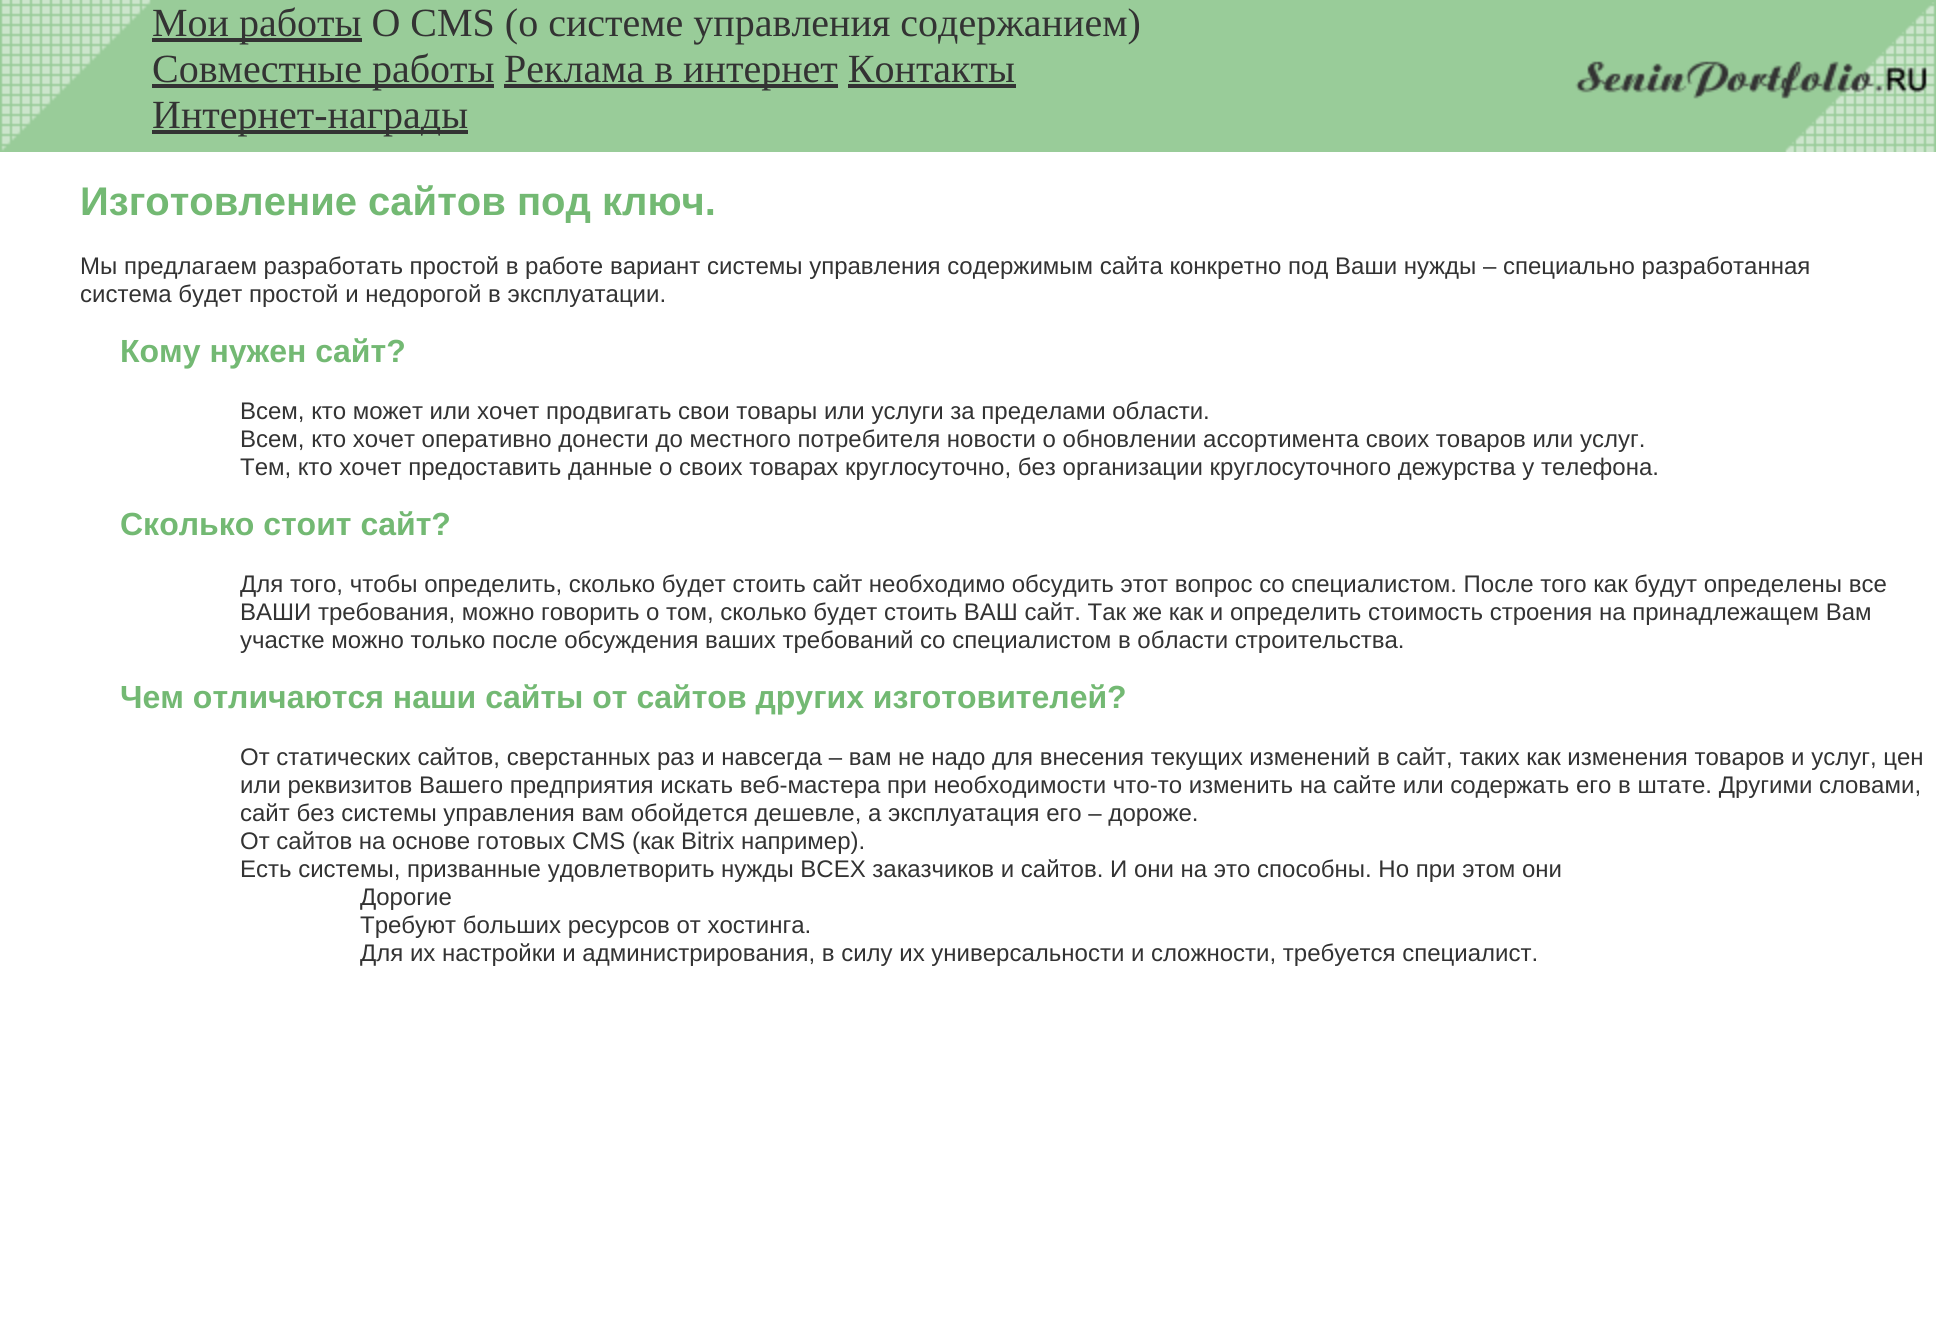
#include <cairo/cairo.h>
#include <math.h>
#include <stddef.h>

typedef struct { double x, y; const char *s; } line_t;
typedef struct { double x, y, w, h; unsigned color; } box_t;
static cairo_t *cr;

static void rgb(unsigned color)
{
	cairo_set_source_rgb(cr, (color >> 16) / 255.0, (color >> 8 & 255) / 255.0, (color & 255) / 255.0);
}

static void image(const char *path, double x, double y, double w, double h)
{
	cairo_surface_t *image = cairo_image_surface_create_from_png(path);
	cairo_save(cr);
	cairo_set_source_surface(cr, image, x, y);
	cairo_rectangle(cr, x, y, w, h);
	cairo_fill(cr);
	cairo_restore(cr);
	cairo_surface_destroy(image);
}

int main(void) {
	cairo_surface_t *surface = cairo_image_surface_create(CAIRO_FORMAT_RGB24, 1936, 1324);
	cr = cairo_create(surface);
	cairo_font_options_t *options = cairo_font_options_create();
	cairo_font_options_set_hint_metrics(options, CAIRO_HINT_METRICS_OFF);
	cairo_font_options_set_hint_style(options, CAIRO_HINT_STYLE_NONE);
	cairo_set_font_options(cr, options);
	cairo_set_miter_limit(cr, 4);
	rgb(0xffffff);
	cairo_paint(cr);
	rgb(0x99cc99);
	cairo_rectangle(cr, 0, 0, 1936, 152);
	cairo_fill(cr);
	image("img/1.png", 1, 0, 150, 151);
	rgb(0x333333);
	cairo_rectangle(cr, 152, 38, 210, 4);
	cairo_fill(cr);
	image("img/2.png", 1575, 2, 360, 150);
	{
		static const box_t items[] = {
			{152, 84, 342, 4, 0x333333},
			{504, 84, 334, 4, 0x333333},
			{848, 84, 168, 4, 0x333333},
			{152, 130, 316, 4, 0x333333},
		};
		for (size_t i = 0; i < sizeof items / sizeof *items; i++) {
			rgb(items[i].color);
			cairo_rectangle(cr, items[i].x, items[i].y, items[i].w, items[i].h);
			cairo_fill(cr);
		}
	}
	cairo_select_font_face(cr, "Liberation Serif", CAIRO_FONT_SLANT_NORMAL, CAIRO_FONT_WEIGHT_NORMAL);
	cairo_set_font_size(cr, 40);
	{
		static const line_t items[] = {
			{152, 36, "Мои работы О CMS (о системе управления содержанием)"},
			{152, 82, "Совместные работы"},
			{504, 82, "Реклама в интернет Контакты"},
			{152, 128, "Интернет-награды"},
		};
		for (size_t i = 0; i < sizeof items / sizeof *items; i++) {
			cairo_move_to(cr, items[i].x, items[i].y);
			cairo_show_text(cr, items[i].s);
		}
	}
	cairo_select_font_face(cr, "Liberation Sans", CAIRO_FONT_SLANT_NORMAL, CAIRO_FONT_WEIGHT_BOLD);
	rgb(0x73b973);
	cairo_move_to(cr, 80, 215);
	cairo_show_text(cr, "Изготовление сайтов под ключ.");
	cairo_select_font_face(cr, "Liberation Sans", CAIRO_FONT_SLANT_NORMAL, CAIRO_FONT_WEIGHT_NORMAL);
	cairo_set_font_size(cr, 24);
	rgb(0x333333);
	cairo_move_to(cr, 80, 274);
	cairo_show_text(cr, "Мы предлагаем разработать простой в работе вариант системы управления содержимым сайта конкретно под Ваши нужды – специально разработанная");
	cairo_move_to(cr, 80, 302);
	cairo_show_text(cr, "система будет простой и недорогой в эксплуатации.");
	cairo_select_font_face(cr, "Liberation Sans", CAIRO_FONT_SLANT_NORMAL, CAIRO_FONT_WEIGHT_BOLD);
	cairo_set_font_size(cr, 32);
	rgb(0x73b973);
	cairo_move_to(cr, 120, 362);
	cairo_show_text(cr, "Кому нужен сайт?");
	cairo_select_font_face(cr, "Liberation Sans", CAIRO_FONT_SLANT_NORMAL, CAIRO_FONT_WEIGHT_NORMAL);
	cairo_set_font_size(cr, 24);
	rgb(0x333333);
	{
		static const line_t items[] = {
			{240, 419, "Всем, кто может или хочет продвигать свои товары или услуги за пределами области."},
			{240, 447, "Всем, кто хочет оперативно донести до местного потребителя новости о обновлении ассортимента своих товаров или услуг."},
			{240, 475, "Тем, кто хочет предоставить данные о своих товарах круглосуточно, без организации круглосуточного дежурства у телефона."},
		};
		for (size_t i = 0; i < sizeof items / sizeof *items; i++) {
			cairo_move_to(cr, items[i].x, items[i].y);
			cairo_show_text(cr, items[i].s);
		}
	}
	cairo_select_font_face(cr, "Liberation Sans", CAIRO_FONT_SLANT_NORMAL, CAIRO_FONT_WEIGHT_BOLD);
	cairo_set_font_size(cr, 32);
	rgb(0x73b973);
	cairo_move_to(cr, 120, 535);
	cairo_show_text(cr, "Сколько стоит сайт?");
	cairo_select_font_face(cr, "Liberation Sans", CAIRO_FONT_SLANT_NORMAL, CAIRO_FONT_WEIGHT_NORMAL);
	cairo_set_font_size(cr, 24);
	rgb(0x333333);
	{
		static const line_t items[] = {
			{240, 592, "Для того, чтобы определить, сколько будет стоить сайт необходимо обсудить этот вопрос со специалистом. После того как будут определены все"},
			{240, 620, "ВАШИ требования, можно говорить о том, сколько будет стоить ВАШ сайт. Так же как и определить стоимость строения на принадлежащем Вам"},
			{240, 648, "участке можно только после обсуждения ваших требований со специалистом в области строительства."},
		};
		for (size_t i = 0; i < sizeof items / sizeof *items; i++) {
			cairo_move_to(cr, items[i].x, items[i].y);
			cairo_show_text(cr, items[i].s);
		}
	}
	cairo_select_font_face(cr, "Liberation Sans", CAIRO_FONT_SLANT_NORMAL, CAIRO_FONT_WEIGHT_BOLD);
	cairo_set_font_size(cr, 32);
	rgb(0x73b973);
	cairo_move_to(cr, 120, 708);
	cairo_show_text(cr, "Чем отличаются наши сайты от сайтов других изготовителей?");
	cairo_select_font_face(cr, "Liberation Sans", CAIRO_FONT_SLANT_NORMAL, CAIRO_FONT_WEIGHT_NORMAL);
	cairo_set_font_size(cr, 24);
	rgb(0x333333);
	{
		static const line_t items[] = {
			{240, 765, "От статических сайтов, сверстанных раз и навсегда – вам не надо для внесения текущих изменений в сайт, таких как изменения товаров и услуг, цен"},
			{240, 793, "или реквизитов Вашего предприятия искать веб-мастера при необходимости что-то изменить на сайте или содержать его в штате. Другими словами,"},
			{240, 821, "сайт без системы управления вам обойдется дешевле, а эксплуатация его – дороже."},
			{240, 849, "От сайтов на основе готовых CMS (как Bitrix например)."},
			{240, 877, "Есть системы, призванные удовлетворить нужды ВСЕХ заказчиков и сайтов. И они на это способны. Но при этом они"},
			{360, 905, "Дорогие"},
			{360, 933, "Требуют больших ресурсов от хостинга."},
			{360, 961, "Для их настройки и администрирования, в силу их универсальности и сложности, требуется специалист."},
		};
		for (size_t i = 0; i < sizeof items / sizeof *items; i++) {
			cairo_move_to(cr, items[i].x, items[i].y);
			cairo_show_text(cr, items[i].s);
		}
	}
	cairo_surface_write_to_png(surface, "page.png");
	cairo_font_options_destroy(options);
	cairo_destroy(cr);
	cairo_surface_destroy(surface);
	return 0;
}
